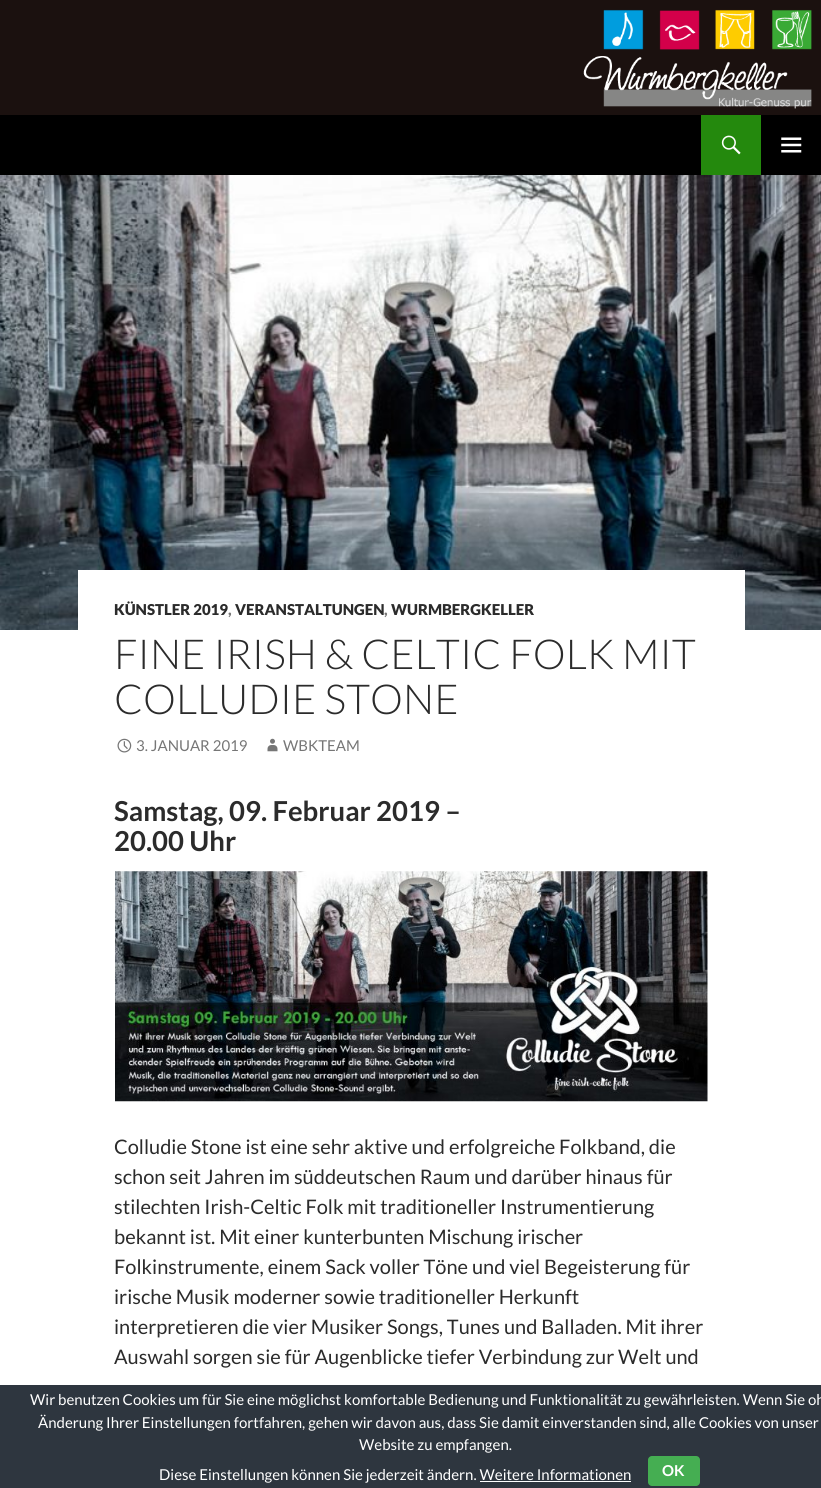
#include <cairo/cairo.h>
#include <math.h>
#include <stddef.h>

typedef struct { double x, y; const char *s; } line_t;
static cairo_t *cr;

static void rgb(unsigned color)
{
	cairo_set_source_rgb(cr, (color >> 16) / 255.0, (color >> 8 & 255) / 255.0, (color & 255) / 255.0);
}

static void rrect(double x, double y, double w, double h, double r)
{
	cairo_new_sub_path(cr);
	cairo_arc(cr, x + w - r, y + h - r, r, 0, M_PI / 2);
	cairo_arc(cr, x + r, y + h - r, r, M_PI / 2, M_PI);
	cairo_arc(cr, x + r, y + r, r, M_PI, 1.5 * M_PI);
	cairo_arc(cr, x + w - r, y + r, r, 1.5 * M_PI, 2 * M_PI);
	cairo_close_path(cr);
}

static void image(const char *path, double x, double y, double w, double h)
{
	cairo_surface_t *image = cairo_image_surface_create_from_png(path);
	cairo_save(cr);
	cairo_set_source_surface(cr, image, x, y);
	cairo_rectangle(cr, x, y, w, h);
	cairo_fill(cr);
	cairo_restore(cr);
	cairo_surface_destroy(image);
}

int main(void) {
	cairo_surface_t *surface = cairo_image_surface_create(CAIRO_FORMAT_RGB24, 821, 1488);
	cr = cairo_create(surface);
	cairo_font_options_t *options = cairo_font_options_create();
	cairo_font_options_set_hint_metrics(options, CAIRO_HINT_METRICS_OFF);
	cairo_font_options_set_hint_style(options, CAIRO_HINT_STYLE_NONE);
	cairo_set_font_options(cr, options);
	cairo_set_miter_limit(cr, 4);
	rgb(0xffffff);
	cairo_paint(cr);
	image("img/1.png", 0, 0, 821, 115);
	rgb(0x000000);
	cairo_rectangle(cr, 0, 115, 821, 60);
	cairo_fill(cr);
	rgb(0x24890d);
	cairo_rectangle(cr, 701, 115, 60, 60);
	cairo_fill(cr);
	image("img/2.png", 721, 135, 20, 20);
	image("img/3.png", 781, 137, 21, 16);
	image("img/4.png", 0, 175, 821, 455);
	rgb(0xffffff);
	cairo_rectangle(cr, 78, 570, 667, 60);
	cairo_fill(cr);
	image("img/5.png", 117, 738, 15, 15);
	image("img/6.png", 267, 738, 11, 14);
	image("img/7.png", 115, 871, 593, 231);
	rgb(0x2e363f);
	cairo_rectangle(cr, 0, 1385, 821, 103);
	cairo_fill(cr);
	rgb(0x45ae52);
	rrect(648, 1456, 52, 30, 4);
	cairo_fill(cr);
	rgb(0xffffff);
	cairo_rectangle(cr, 480, 1481, 151, 1);
	cairo_fill(cr);
	cairo_select_font_face(cr, "Lato Black", CAIRO_FONT_SLANT_NORMAL, CAIRO_FONT_WEIGHT_NORMAL);
	cairo_set_font_size(cr, 15);
	rgb(0x2b2b2b);
	cairo_move_to(cr, 114, 615);
	cairo_show_text(cr, "KÜNSTLER 2019");
	rgb(0x767676);
	cairo_move_to(cr, 228, 615);
	cairo_show_text(cr, ",");
	rgb(0x2b2b2b);
	cairo_move_to(cr, 235, 615);
	cairo_show_text(cr, "VERANSTALTUNGEN");
	rgb(0x767676);
	cairo_move_to(cr, 384, 615);
	cairo_show_text(cr, ",");
	rgb(0x2b2b2b);
	cairo_move_to(cr, 391, 615);
	cairo_show_text(cr, "WURMBERGKELLER");
	cairo_select_font_face(cr, "Lato Light", CAIRO_FONT_SLANT_NORMAL, CAIRO_FONT_WEIGHT_NORMAL);
	cairo_set_font_size(cr, 41.25);
	cairo_move_to(cr, 114, 669);
	cairo_show_text(cr, "FINE IRISH & CELTIC FOLK MIT");
	cairo_move_to(cr, 114, 714);
	cairo_show_text(cr, "COLLUDIE STONE");
	cairo_select_font_face(cr, "Lato", CAIRO_FONT_SLANT_NORMAL, CAIRO_FONT_WEIGHT_NORMAL);
	cairo_set_font_size(cr, 15);
	rgb(0x767676);
	cairo_move_to(cr, 136, 751);
	cairo_show_text(cr, "3. JANUAR 2019");
	cairo_move_to(cr, 283, 751);
	cairo_show_text(cr, "WBKTEAM");
	cairo_select_font_face(cr, "Lato", CAIRO_FONT_SLANT_NORMAL, CAIRO_FONT_WEIGHT_BOLD);
	cairo_set_font_size(cr, 27.5);
	rgb(0x2b2b2b);
	cairo_move_to(cr, 114, 821);
	cairo_show_text(cr, "Samstag, 09. Februar 2019 –");
	cairo_move_to(cr, 114, 851);
	cairo_show_text(cr, "20.00 Uhr");
	cairo_select_font_face(cr, "Lato", CAIRO_FONT_SLANT_NORMAL, CAIRO_FONT_WEIGHT_NORMAL);
	cairo_set_font_size(cr, 20);
	{
		static const line_t items[] = {
			{114, 1154, "Colludie Stone ist eine sehr aktive und erfolgreiche Folkband, die"},
			{114, 1184, "schon seit Jahren im süddeutschen Raum und darüber hinaus für"},
			{114, 1214, "stilechten Irish-Celtic Folk mit traditioneller Instrumentierung"},
			{114, 1244, "bekannt ist. Mit einer kunterbunten Mischung irischer"},
			{114, 1274, "Folkinstrumente, einem Sack voller Töne und viel Begeisterung für"},
			{114, 1304, "irische Musik moderner sowie traditioneller Herkunft"},
			{114, 1334, "interpretieren die vier Musiker Songs, Tunes und Balladen. Mit ihrer"},
			{114, 1364, "Auswahl sorgen sie für Augenblicke tiefer Verbindung zur Welt und"},
		};
		for (size_t i = 0; i < sizeof items / sizeof *items; i++) {
			cairo_move_to(cr, items[i].x, items[i].y);
			cairo_show_text(cr, items[i].s);
		}
	}
	cairo_set_font_size(cr, 15);
	rgb(0xffffff);
	{
		static const line_t items[] = {
			{30, 1405, "Wir benutzen Cookies um für Sie eine möglichst komfortable Bedienung und Funktionalität zu gewährleisten. Wenn Sie oh"},
			{38, 1428, "Änderung Ihrer Einstellungen fortfahren, gehen wir davon aus, dass Sie damit einverstanden sind, alle Cookies von unser"},
			{359, 1450, "Website zu empfangen."},
			{159, 1480, "Diese Einstellungen können Sie jederzeit ändern. Weitere Informationen"},
		};
		for (size_t i = 0; i < sizeof items / sizeof *items; i++) {
			cairo_move_to(cr, items[i].x, items[i].y);
			cairo_show_text(cr, items[i].s);
		}
	}
	cairo_select_font_face(cr, "Lato", CAIRO_FONT_SLANT_NORMAL, CAIRO_FONT_WEIGHT_BOLD);
	cairo_move_to(cr, 662, 1476);
	cairo_show_text(cr, "OK");
	cairo_surface_write_to_png(surface, "page.png");
	cairo_font_options_destroy(options);
	cairo_destroy(cr);
	cairo_surface_destroy(surface);
	return 0;
}
